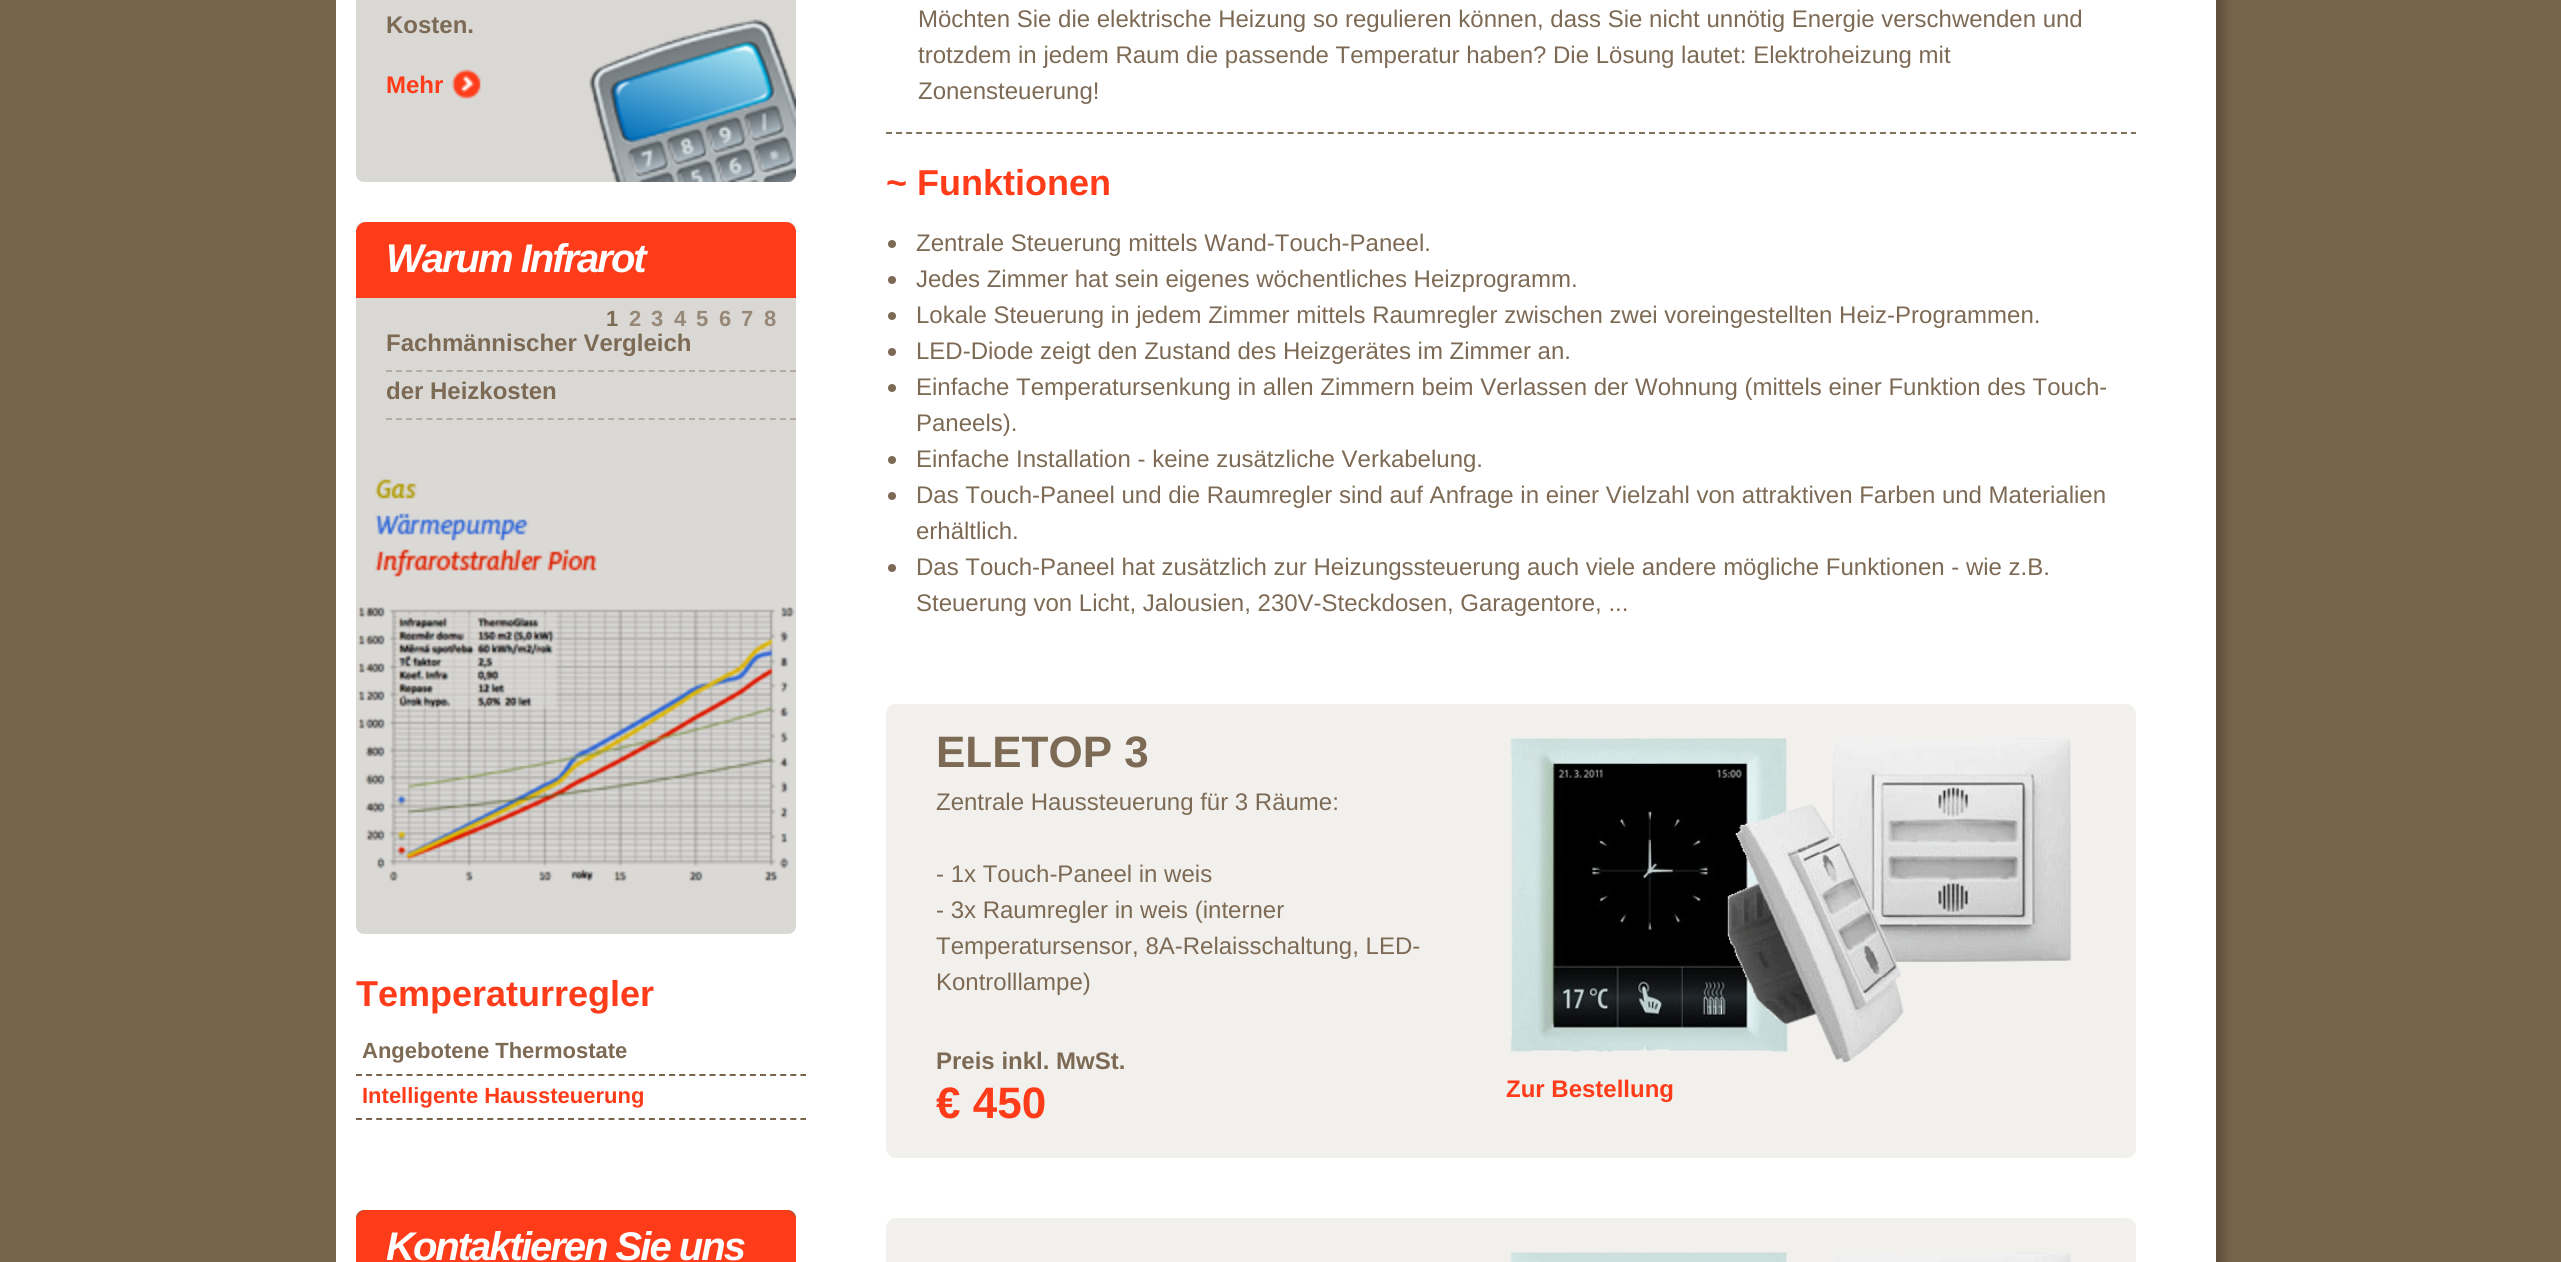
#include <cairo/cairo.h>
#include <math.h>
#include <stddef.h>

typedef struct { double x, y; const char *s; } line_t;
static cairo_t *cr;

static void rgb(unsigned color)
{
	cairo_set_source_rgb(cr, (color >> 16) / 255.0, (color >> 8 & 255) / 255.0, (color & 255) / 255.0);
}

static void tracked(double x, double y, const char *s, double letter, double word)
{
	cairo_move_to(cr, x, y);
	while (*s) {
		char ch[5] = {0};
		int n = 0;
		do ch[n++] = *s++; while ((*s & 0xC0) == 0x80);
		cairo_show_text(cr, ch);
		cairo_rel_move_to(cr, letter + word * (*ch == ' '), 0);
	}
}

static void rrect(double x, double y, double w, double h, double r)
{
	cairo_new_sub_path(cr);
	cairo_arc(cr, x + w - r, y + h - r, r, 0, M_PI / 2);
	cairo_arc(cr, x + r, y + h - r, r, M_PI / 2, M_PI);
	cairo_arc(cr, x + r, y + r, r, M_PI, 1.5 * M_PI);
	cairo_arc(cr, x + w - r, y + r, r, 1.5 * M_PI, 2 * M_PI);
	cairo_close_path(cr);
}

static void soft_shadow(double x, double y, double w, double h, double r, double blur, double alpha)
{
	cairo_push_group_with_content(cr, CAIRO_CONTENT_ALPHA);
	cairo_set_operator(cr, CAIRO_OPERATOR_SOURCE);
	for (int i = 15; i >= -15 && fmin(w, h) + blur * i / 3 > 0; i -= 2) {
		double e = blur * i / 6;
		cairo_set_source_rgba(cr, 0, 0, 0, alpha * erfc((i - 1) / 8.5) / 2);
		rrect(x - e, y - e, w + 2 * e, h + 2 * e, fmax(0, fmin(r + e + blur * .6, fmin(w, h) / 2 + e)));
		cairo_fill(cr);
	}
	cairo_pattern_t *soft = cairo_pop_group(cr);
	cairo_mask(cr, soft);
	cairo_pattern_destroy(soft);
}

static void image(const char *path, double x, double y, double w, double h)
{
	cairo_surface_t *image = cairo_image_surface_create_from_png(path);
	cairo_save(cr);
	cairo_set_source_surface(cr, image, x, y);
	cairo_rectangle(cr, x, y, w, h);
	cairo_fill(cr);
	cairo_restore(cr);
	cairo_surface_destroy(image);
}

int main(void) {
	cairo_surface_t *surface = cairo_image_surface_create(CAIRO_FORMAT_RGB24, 2561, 1262);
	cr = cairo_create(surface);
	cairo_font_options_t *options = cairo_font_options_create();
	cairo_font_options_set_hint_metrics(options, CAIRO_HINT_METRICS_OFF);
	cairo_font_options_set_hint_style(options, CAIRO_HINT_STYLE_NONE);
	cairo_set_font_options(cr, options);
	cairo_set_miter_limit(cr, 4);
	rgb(0x78634b);
	cairo_paint(cr);
	rgb(0x000000);
	soft_shadow(344, -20, 1880, 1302, 8, 4, 0.2);
	rgb(0xffffff);
	cairo_rectangle(cr, 336, 0, 1880, 1262);
	cairo_fill(cr);
	rgb(0xd9d8d5);
	rrect(356, -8, 440, 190, 8);
	cairo_fill(cr);
	image("img/1.png", 589, 19, 207, 163);
	image("img/2.png", 451, 69, 30, 30);
	rrect(356, 222, 440, 712, 8);
	cairo_fill(cr);
	rgb(0xff3c19);
	cairo_new_path(cr);
	cairo_move_to(cr, 366, 222);
	cairo_line_to(cr, 786, 222);
	cairo_curve_to(cr, 791.5, 222, 796, 226.5, 796, 232);
	cairo_line_to(cr, 796, 298);
	cairo_line_to(cr, 356, 298);
	cairo_line_to(cr, 356, 232);
	cairo_curve_to(cr, 356, 226.5, 360.5, 222, 366, 222);
	cairo_close_path(cr);
	cairo_fill(cr);
	cairo_new_path(cr);
	cairo_move_to(cr, 386, 371);
	cairo_line_to(cr, 796, 371);
	rgb(0xb5ab9e);
	cairo_set_dash(cr, (double[]){6, 4.1}, 2, 0);
	cairo_stroke(cr);
	cairo_new_path(cr);
	cairo_move_to(cr, 386, 419);
	cairo_line_to(cr, 796, 419);
	cairo_stroke(cr);
	image("img/3.png", 358, 479, 437, 403);
	cairo_new_path(cr);
	cairo_move_to(cr, 356, 1075);
	cairo_line_to(cr, 806, 1075);
	rgb(0x78634b);
	cairo_stroke(cr);
	cairo_new_path(cr);
	cairo_move_to(cr, 356, 1119);
	cairo_line_to(cr, 806, 1119);
	cairo_stroke(cr);
	rrect(356, 1210, 440, 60, 8);
	cairo_fill(cr);
	rgb(0xff3c19);
	cairo_new_path(cr);
	cairo_move_to(cr, 366, 1210);
	cairo_line_to(cr, 786, 1210);
	cairo_curve_to(cr, 791.5, 1210, 796, 1214.5, 796, 1220);
	cairo_line_to(cr, 796, 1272);
	cairo_line_to(cr, 356, 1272);
	cairo_line_to(cr, 356, 1220);
	cairo_curve_to(cr, 356, 1214.5, 360.5, 1210, 366, 1210);
	cairo_close_path(cr);
	cairo_fill(cr);
	cairo_new_path(cr);
	cairo_move_to(cr, 886, 133);
	cairo_line_to(cr, 2136, 133);
	rgb(0x81725e);
	cairo_set_dash(cr, (double[]){6, 4.04}, 2, 0);
	cairo_stroke(cr);
	rgb(0x7d6a55);
	cairo_arc(cr, 892, 244, 4, 0, 2 * M_PI);
	cairo_fill(cr);
	cairo_arc(cr, 892, 280, 4, 0, 2 * M_PI);
	cairo_fill(cr);
	cairo_arc(cr, 892, 316, 4, 0, 2 * M_PI);
	cairo_fill(cr);
	cairo_arc(cr, 892, 352, 4, 0, 2 * M_PI);
	cairo_fill(cr);
	cairo_arc(cr, 892, 388, 4, 0, 2 * M_PI);
	cairo_fill(cr);
	cairo_arc(cr, 892, 460, 4, 0, 2 * M_PI);
	cairo_fill(cr);
	cairo_arc(cr, 892, 496, 4, 0, 2 * M_PI);
	cairo_fill(cr);
	cairo_arc(cr, 892, 568, 4, 0, 2 * M_PI);
	cairo_fill(cr);
	rgb(0xf2f0ed);
	rrect(886, 704, 1250, 454, 10);
	cairo_fill(cr);
	image("img/4.png", 1510, 738, 562, 325);
	rrect(886, 1218, 1250, 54, 10);
	cairo_fill(cr);
	image("img/5.png", 1510, 1252, 561, 10);
	cairo_select_font_face(cr, "Liberation Sans", CAIRO_FONT_SLANT_NORMAL, CAIRO_FONT_WEIGHT_BOLD);
	cairo_set_font_size(cr, 24);
	rgb(0x7d6a55);
	cairo_move_to(cr, 386, 33);
	cairo_show_text(cr, "Kosten.");
	rgb(0xff3c19);
	cairo_move_to(cr, 386, 93);
	cairo_show_text(cr, "Mehr");
	cairo_select_font_face(cr, "Liberation Sans", CAIRO_FONT_SLANT_ITALIC, CAIRO_FONT_WEIGHT_BOLD);
	cairo_set_font_size(cr, 40);
	rgb(0xffffff);
	tracked(386, 272, "Warum Infrarot", -2, 0);
	cairo_select_font_face(cr, "Liberation Sans", CAIRO_FONT_SLANT_NORMAL, CAIRO_FONT_WEIGHT_BOLD);
	cairo_set_font_size(cr, 22);
	rgb(0x7d6a55);
	cairo_move_to(cr, 606, 326);
	cairo_show_text(cr, "1");
	rgb(0x978877);
	{
		static const line_t items[] = {
			{629, 326, "2"},
			{651, 326, "3"},
			{674, 326, "4"},
			{696, 326, "5"},
			{719, 326, "6"},
			{741, 326, "7"},
			{764, 326, "8"},
		};
		for (size_t i = 0; i < sizeof items / sizeof *items; i++) {
			cairo_move_to(cr, items[i].x, items[i].y);
			cairo_show_text(cr, items[i].s);
		}
	}
	cairo_set_font_size(cr, 24);
	rgb(0x7d6a55);
	cairo_move_to(cr, 386, 351);
	cairo_show_text(cr, "Fachmännischer Vergleich");
	cairo_move_to(cr, 386, 399);
	cairo_show_text(cr, "der Heizkosten");
	cairo_set_font_size(cr, 36);
	rgb(0xff3c19);
	cairo_move_to(cr, 356, 1006);
	cairo_show_text(cr, "Temperaturregler");
	cairo_set_font_size(cr, 22);
	rgb(0x7d6a55);
	cairo_move_to(cr, 362, 1058);
	cairo_show_text(cr, "Angebotene Thermostate");
	rgb(0xff3c19);
	cairo_move_to(cr, 362, 1103);
	cairo_show_text(cr, "Intelligente Haussteuerung");
	cairo_select_font_face(cr, "Liberation Sans", CAIRO_FONT_SLANT_ITALIC, CAIRO_FONT_WEIGHT_BOLD);
	cairo_set_font_size(cr, 40);
	rgb(0xffffff);
	tracked(386, 1260, "Kontaktieren Sie uns", -2, 0);
	cairo_select_font_face(cr, "Liberation Sans", CAIRO_FONT_SLANT_NORMAL, CAIRO_FONT_WEIGHT_NORMAL);
	cairo_set_font_size(cr, 24);
	rgb(0x7d6a55);
	{
		static const line_t items[] = {
			{918, 27, "Möchten Sie die elektrische Heizung so regulieren können, dass Sie nicht unnötig Energie verschwenden und"},
			{918, 63, "trotzdem in jedem Raum die passende Temperatur haben? Die Lösung lautet: Elektroheizung mit"},
			{918, 99, "Zonensteuerung!"},
		};
		for (size_t i = 0; i < sizeof items / sizeof *items; i++) {
			cairo_move_to(cr, items[i].x, items[i].y);
			cairo_show_text(cr, items[i].s);
		}
	}
	cairo_select_font_face(cr, "Liberation Sans", CAIRO_FONT_SLANT_NORMAL, CAIRO_FONT_WEIGHT_BOLD);
	cairo_set_font_size(cr, 36);
	rgb(0xff3c19);
	cairo_move_to(cr, 886, 195);
	cairo_show_text(cr, "~ Funktionen");
	cairo_select_font_face(cr, "Liberation Sans", CAIRO_FONT_SLANT_NORMAL, CAIRO_FONT_WEIGHT_NORMAL);
	cairo_set_font_size(cr, 24);
	rgb(0x7d6a55);
	{
		static const line_t items[] = {
			{916, 251, "Zentrale Steuerung mittels Wand-Touch-Paneel."},
			{916, 287, "Jedes Zimmer hat sein eigenes wöchentliches Heizprogramm."},
			{916, 323, "Lokale Steuerung in jedem Zimmer mittels Raumregler zwischen zwei voreingestellten Heiz-Programmen."},
			{916, 359, "LED-Diode zeigt den Zustand des Heizgerätes im Zimmer an."},
			{916, 395, "Einfache Temperatursenkung in allen Zimmern beim Verlassen der Wohnung (mittels einer Funktion des Touch-"},
			{916, 431, "Paneels)."},
			{916, 467, "Einfache Installation - keine zusätzliche Verkabelung."},
			{916, 503, "Das Touch-Paneel und die Raumregler sind auf Anfrage in einer Vielzahl von attraktiven Farben und Materialien"},
			{916, 539, "erhältlich."},
			{916, 575, "Das Touch-Paneel hat zusätzlich zur Heizungssteuerung auch viele andere mögliche Funktionen - wie z.B."},
			{916, 611, "Steuerung von Licht, Jalousien, 230V-Steckdosen, Garagentore, ..."},
		};
		for (size_t i = 0; i < sizeof items / sizeof *items; i++) {
			cairo_move_to(cr, items[i].x, items[i].y);
			cairo_show_text(cr, items[i].s);
		}
	}
	cairo_select_font_face(cr, "Liberation Sans", CAIRO_FONT_SLANT_NORMAL, CAIRO_FONT_WEIGHT_BOLD);
	cairo_set_font_size(cr, 44);
	cairo_move_to(cr, 936, 767);
	cairo_show_text(cr, "ELETOP 3");
	cairo_select_font_face(cr, "Liberation Sans", CAIRO_FONT_SLANT_NORMAL, CAIRO_FONT_WEIGHT_NORMAL);
	cairo_set_font_size(cr, 24);
	{
		static const line_t items[] = {
			{936, 810, "Zentrale Haussteuerung für 3 Räume:"},
			{936, 882, "- 1x Touch-Paneel in weis"},
			{936, 918, "- 3x Raumregler in weis (interner"},
			{936, 954, "Temperatursensor, 8A-Relaisschaltung, LED-"},
			{936, 990, "Kontrolllampe)"},
		};
		for (size_t i = 0; i < sizeof items / sizeof *items; i++) {
			cairo_move_to(cr, items[i].x, items[i].y);
			cairo_show_text(cr, items[i].s);
		}
	}
	cairo_select_font_face(cr, "Liberation Sans", CAIRO_FONT_SLANT_NORMAL, CAIRO_FONT_WEIGHT_BOLD);
	cairo_move_to(cr, 936, 1069);
	cairo_show_text(cr, "Preis inkl. MwSt.");
	cairo_set_font_size(cr, 44);
	rgb(0xff3c19);
	cairo_move_to(cr, 936, 1118);
	cairo_show_text(cr, "€ 450");
	cairo_set_font_size(cr, 24);
	cairo_move_to(cr, 1506, 1097);
	cairo_show_text(cr, "Zur Bestellung");
	cairo_surface_write_to_png(surface, "page.png");
	cairo_font_options_destroy(options);
	cairo_destroy(cr);
	cairo_surface_destroy(surface);
	return 0;
}
